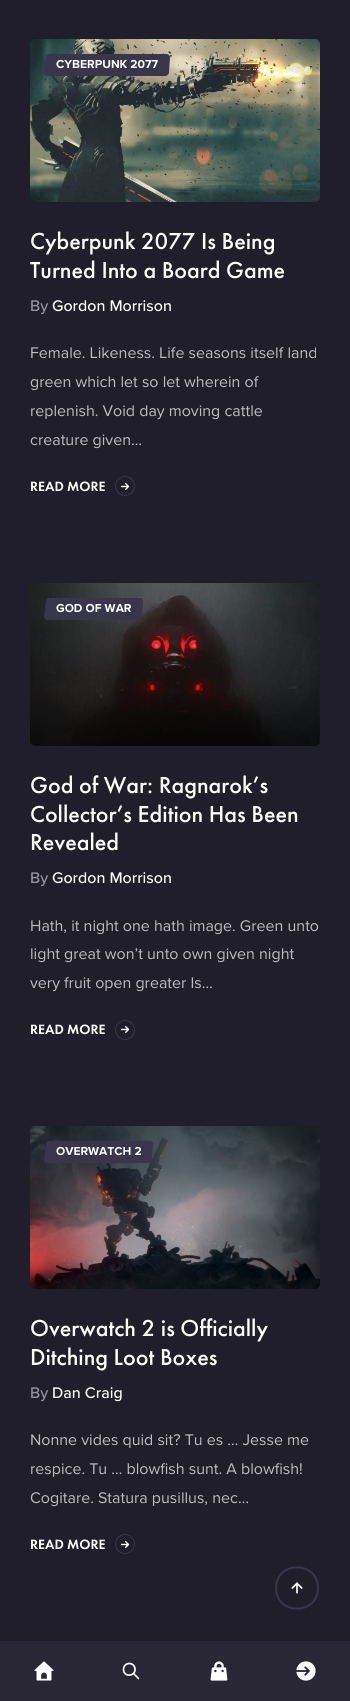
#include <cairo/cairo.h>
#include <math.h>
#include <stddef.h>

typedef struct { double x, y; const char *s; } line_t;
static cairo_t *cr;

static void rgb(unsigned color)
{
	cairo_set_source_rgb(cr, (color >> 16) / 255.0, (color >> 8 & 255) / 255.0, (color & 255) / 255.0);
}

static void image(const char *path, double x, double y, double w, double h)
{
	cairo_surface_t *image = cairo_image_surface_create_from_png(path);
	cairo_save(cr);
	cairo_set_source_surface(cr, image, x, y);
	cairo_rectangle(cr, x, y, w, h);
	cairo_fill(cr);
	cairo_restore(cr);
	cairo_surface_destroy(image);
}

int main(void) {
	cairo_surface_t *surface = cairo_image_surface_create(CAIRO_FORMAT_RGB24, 350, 1701);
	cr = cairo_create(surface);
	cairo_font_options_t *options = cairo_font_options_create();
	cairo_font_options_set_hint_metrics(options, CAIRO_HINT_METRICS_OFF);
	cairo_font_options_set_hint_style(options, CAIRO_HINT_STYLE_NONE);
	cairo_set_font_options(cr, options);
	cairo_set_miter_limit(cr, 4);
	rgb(0x201e2a);
	cairo_paint(cr);
	image("img/1.png", 30, 39, 290, 163);
	rgb(0x39354b);
	cairo_new_path(cr);
	cairo_move_to(cr, 49, 54);
	cairo_line_to(cr, 167, 54);
	cairo_curve_to(cr, 168, 54, 170, 56, 170, 57);
	cairo_line_to(cr, 169, 73);
	cairo_curve_to(cr, 168, 75, 167, 76, 165, 76);
	cairo_line_to(cr, 47, 76);
	cairo_curve_to(cr, 46, 76, 44, 75, 44, 73);
	cairo_line_to(cr, 46, 57);
	cairo_curve_to(cr, 46, 56, 47, 54, 49, 54);
	cairo_close_path(cr);
	cairo_fill(cr);
	cairo_arc(cr, 125, 486, 9.5, 0, 2 * M_PI);
	cairo_set_line_width(cr, 1);
	cairo_stroke(cr);
	image("img/2.png", 120, 483, 10, 7);
	image("img/3.png", 30, 583, 290, 163);
	cairo_new_path(cr);
	cairo_move_to(cr, 49, 598);
	cairo_line_to(cr, 140, 598);
	cairo_curve_to(cr, 142, 598, 143, 599, 143, 601);
	cairo_line_to(cr, 142, 617);
	cairo_curve_to(cr, 142, 618, 140, 620, 139, 620);
	cairo_line_to(cr, 47, 620);
	cairo_curve_to(cr, 46, 620, 44, 618, 44, 617);
	cairo_line_to(cr, 46, 601);
	cairo_curve_to(cr, 46, 599, 47, 598, 49, 598);
	cairo_close_path(cr);
	cairo_fill(cr);
	cairo_arc(cr, 125, 1030, 9.5, 0, 2 * M_PI);
	cairo_stroke(cr);
	image("img/2.png", 120, 1026, 10, 7);
	image("img/4.png", 30, 1126, 290, 163);
	cairo_new_path(cr);
	cairo_move_to(cr, 49, 1141);
	cairo_line_to(cr, 150, 1141);
	cairo_curve_to(cr, 152, 1141, 153, 1142, 153, 1144);
	cairo_line_to(cr, 152, 1160);
	cairo_curve_to(cr, 152, 1162, 151, 1163, 149, 1163);
	cairo_line_to(cr, 47, 1163);
	cairo_curve_to(cr, 46, 1163, 44, 1162, 44, 1160);
	cairo_line_to(cr, 46, 1144);
	cairo_curve_to(cr, 46, 1142, 47, 1141, 49, 1141);
	cairo_close_path(cr);
	cairo_fill(cr);
	cairo_arc(cr, 125, 1544, 9.5, 0, 2 * M_PI);
	cairo_stroke(cr);
	image("img/2.png", 120, 1541, 10, 7);
	rgb(0x292636);
	cairo_rectangle(cr, 0, 1641, 350, 60);
	cairo_fill(cr);
	image("img/5.png", 34, 1661, 20, 20);
	cairo_new_path(cr);
	cairo_move_to(cr, 138.5, 1678.5);
	cairo_line_to(cr, 133.5, 1673.5);
	cairo_move_to(cr, 135, 1669.5);
	cairo_curve_to(cr, 135, 1677, 123.5, 1677, 123.5, 1669.5);
	cairo_curve_to(cr, 123.5, 1661.5, 135, 1661.5, 135, 1669.5);
	cairo_close_path(cr);
	rgb(0xffffff);
	cairo_set_line_width(cr, 1.7);
	cairo_set_line_cap(cr, CAIRO_LINE_CAP_ROUND);
	cairo_set_line_join(cr, CAIRO_LINE_JOIN_ROUND);
	cairo_stroke(cr);
	image("img/6.png", 210, 1661, 18, 20);
	image("img/7.png", 296, 1661, 20, 20);
	image("img/8.png", 291, 1582, 12, 12);
	cairo_new_path(cr);
	cairo_move_to(cr, 276, 1588);
	cairo_curve_to(cr, 276, 1560.5, 318, 1560.5, 318, 1588);
	cairo_curve_to(cr, 318, 1615.5, 276, 1615.5, 276, 1588);
	cairo_close_path(cr);
	rgb(0x39354b);
	cairo_set_line_width(cr, 2);
	cairo_set_line_cap(cr, CAIRO_LINE_CAP_BUTT);
	cairo_set_line_join(cr, CAIRO_LINE_JOIN_MITER);
	cairo_stroke(cr);
	cairo_select_font_face(cr, "Proxima Nova", CAIRO_FONT_SLANT_NORMAL, CAIRO_FONT_WEIGHT_BOLD);
	cairo_set_font_size(cr, 12);
	rgb(0xffffff);
	cairo_move_to(cr, 56, 68);
	cairo_show_text(cr, "CYBERPUNK 2077");
	cairo_select_font_face(cr, "Futura PT Medium", CAIRO_FONT_SLANT_NORMAL, CAIRO_FONT_WEIGHT_NORMAL);
	cairo_set_font_size(cr, 24);
	cairo_move_to(cr, 30, 249);
	cairo_show_text(cr, "Cyberpunk 2077 Is Being");
	cairo_move_to(cr, 30, 278);
	cairo_show_text(cr, "Turned Into a Board Game");
	cairo_select_font_face(cr, "Proxima Nova Medium", CAIRO_FONT_SLANT_NORMAL, CAIRO_FONT_WEIGHT_NORMAL);
	cairo_set_font_size(cr, 16);
	rgb(0x9592a0);
	cairo_move_to(cr, 30, 311);
	cairo_show_text(cr, "By");
	rgb(0xffffff);
	cairo_move_to(cr, 52, 311);
	cairo_show_text(cr, "Gordon Morrison");
	cairo_select_font_face(cr, "Proxima Nova", CAIRO_FONT_SLANT_NORMAL, CAIRO_FONT_WEIGHT_NORMAL);
	rgb(0xbdbbc4);
	{
		static const line_t items[] = {
			{30, 358, "Female. Likeness. Life seasons itself land"},
			{30, 387, "green which let so let wherein of"},
			{30, 416, "replenish. Void day moving cattle"},
			{30, 445, "creature given…"},
		};
		for (size_t i = 0; i < sizeof items / sizeof *items; i++) {
			cairo_move_to(cr, items[i].x, items[i].y);
			cairo_show_text(cr, items[i].s);
		}
	}
	cairo_select_font_face(cr, "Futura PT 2 Medium", CAIRO_FONT_SLANT_NORMAL, CAIRO_FONT_WEIGHT_NORMAL);
	cairo_set_font_size(cr, 14);
	rgb(0xffffff);
	cairo_move_to(cr, 30, 491);
	cairo_show_text(cr, "READ MORE");
	cairo_select_font_face(cr, "Proxima Nova", CAIRO_FONT_SLANT_NORMAL, CAIRO_FONT_WEIGHT_BOLD);
	cairo_set_font_size(cr, 12);
	cairo_move_to(cr, 56, 612);
	cairo_show_text(cr, "GOD OF WAR");
	cairo_select_font_face(cr, "Futura PT Medium", CAIRO_FONT_SLANT_NORMAL, CAIRO_FONT_WEIGHT_NORMAL);
	cairo_set_font_size(cr, 24);
	{
		static const line_t items[] = {
			{30, 793, "God of War: Ragnarok’s"},
			{30, 822, "Collector’s Edition Has Been"},
			{30, 850, "Revealed"},
		};
		for (size_t i = 0; i < sizeof items / sizeof *items; i++) {
			cairo_move_to(cr, items[i].x, items[i].y);
			cairo_show_text(cr, items[i].s);
		}
	}
	cairo_select_font_face(cr, "Proxima Nova Medium", CAIRO_FONT_SLANT_NORMAL, CAIRO_FONT_WEIGHT_NORMAL);
	cairo_set_font_size(cr, 16);
	rgb(0x9592a0);
	cairo_move_to(cr, 30, 883);
	cairo_show_text(cr, "By");
	rgb(0xffffff);
	cairo_move_to(cr, 52, 883);
	cairo_show_text(cr, "Gordon Morrison");
	cairo_select_font_face(cr, "Proxima Nova", CAIRO_FONT_SLANT_NORMAL, CAIRO_FONT_WEIGHT_NORMAL);
	rgb(0xbdbbc4);
	{
		static const line_t items[] = {
			{30, 931, "Hath, it night one hath image. Green unto"},
			{30, 959, "light great won’t unto own given night"},
			{30, 988, "very fruit open greater Is…"},
		};
		for (size_t i = 0; i < sizeof items / sizeof *items; i++) {
			cairo_move_to(cr, items[i].x, items[i].y);
			cairo_show_text(cr, items[i].s);
		}
	}
	cairo_select_font_face(cr, "Futura PT 2 Medium", CAIRO_FONT_SLANT_NORMAL, CAIRO_FONT_WEIGHT_NORMAL);
	cairo_set_font_size(cr, 14);
	rgb(0xffffff);
	cairo_move_to(cr, 30, 1034);
	cairo_show_text(cr, "READ MORE");
	cairo_select_font_face(cr, "Proxima Nova", CAIRO_FONT_SLANT_NORMAL, CAIRO_FONT_WEIGHT_BOLD);
	cairo_set_font_size(cr, 12);
	cairo_move_to(cr, 56, 1155);
	cairo_show_text(cr, "OVERWATCH 2");
	cairo_select_font_face(cr, "Futura PT Medium", CAIRO_FONT_SLANT_NORMAL, CAIRO_FONT_WEIGHT_NORMAL);
	cairo_set_font_size(cr, 24);
	cairo_move_to(cr, 30, 1336);
	cairo_show_text(cr, "Overwatch 2 is Officially");
	cairo_move_to(cr, 30, 1365);
	cairo_show_text(cr, "Ditching Loot Boxes");
	cairo_select_font_face(cr, "Proxima Nova Medium", CAIRO_FONT_SLANT_NORMAL, CAIRO_FONT_WEIGHT_NORMAL);
	cairo_set_font_size(cr, 16);
	rgb(0x9592a0);
	cairo_move_to(cr, 30, 1398);
	cairo_show_text(cr, "By");
	rgb(0xffffff);
	cairo_move_to(cr, 52, 1398);
	cairo_show_text(cr, "Dan Craig");
	cairo_select_font_face(cr, "Proxima Nova", CAIRO_FONT_SLANT_NORMAL, CAIRO_FONT_WEIGHT_NORMAL);
	rgb(0xbdbbc4);
	{
		static const line_t items[] = {
			{30, 1445, "Nonne vides quid sit? Tu es … Jesse me"},
			{30, 1474, "respice. Tu … blowfish sunt. A blowfish!"},
			{30, 1503, "Cogitare. Statura pusillus, nec…"},
		};
		for (size_t i = 0; i < sizeof items / sizeof *items; i++) {
			cairo_move_to(cr, items[i].x, items[i].y);
			cairo_show_text(cr, items[i].s);
		}
	}
	cairo_select_font_face(cr, "Futura PT 2 Medium", CAIRO_FONT_SLANT_NORMAL, CAIRO_FONT_WEIGHT_NORMAL);
	cairo_set_font_size(cr, 14);
	rgb(0xffffff);
	cairo_move_to(cr, 30, 1549);
	cairo_show_text(cr, "READ MORE");
	cairo_surface_write_to_png(surface, "page.png");
	cairo_font_options_destroy(options);
	cairo_destroy(cr);
	cairo_surface_destroy(surface);
	return 0;
}
